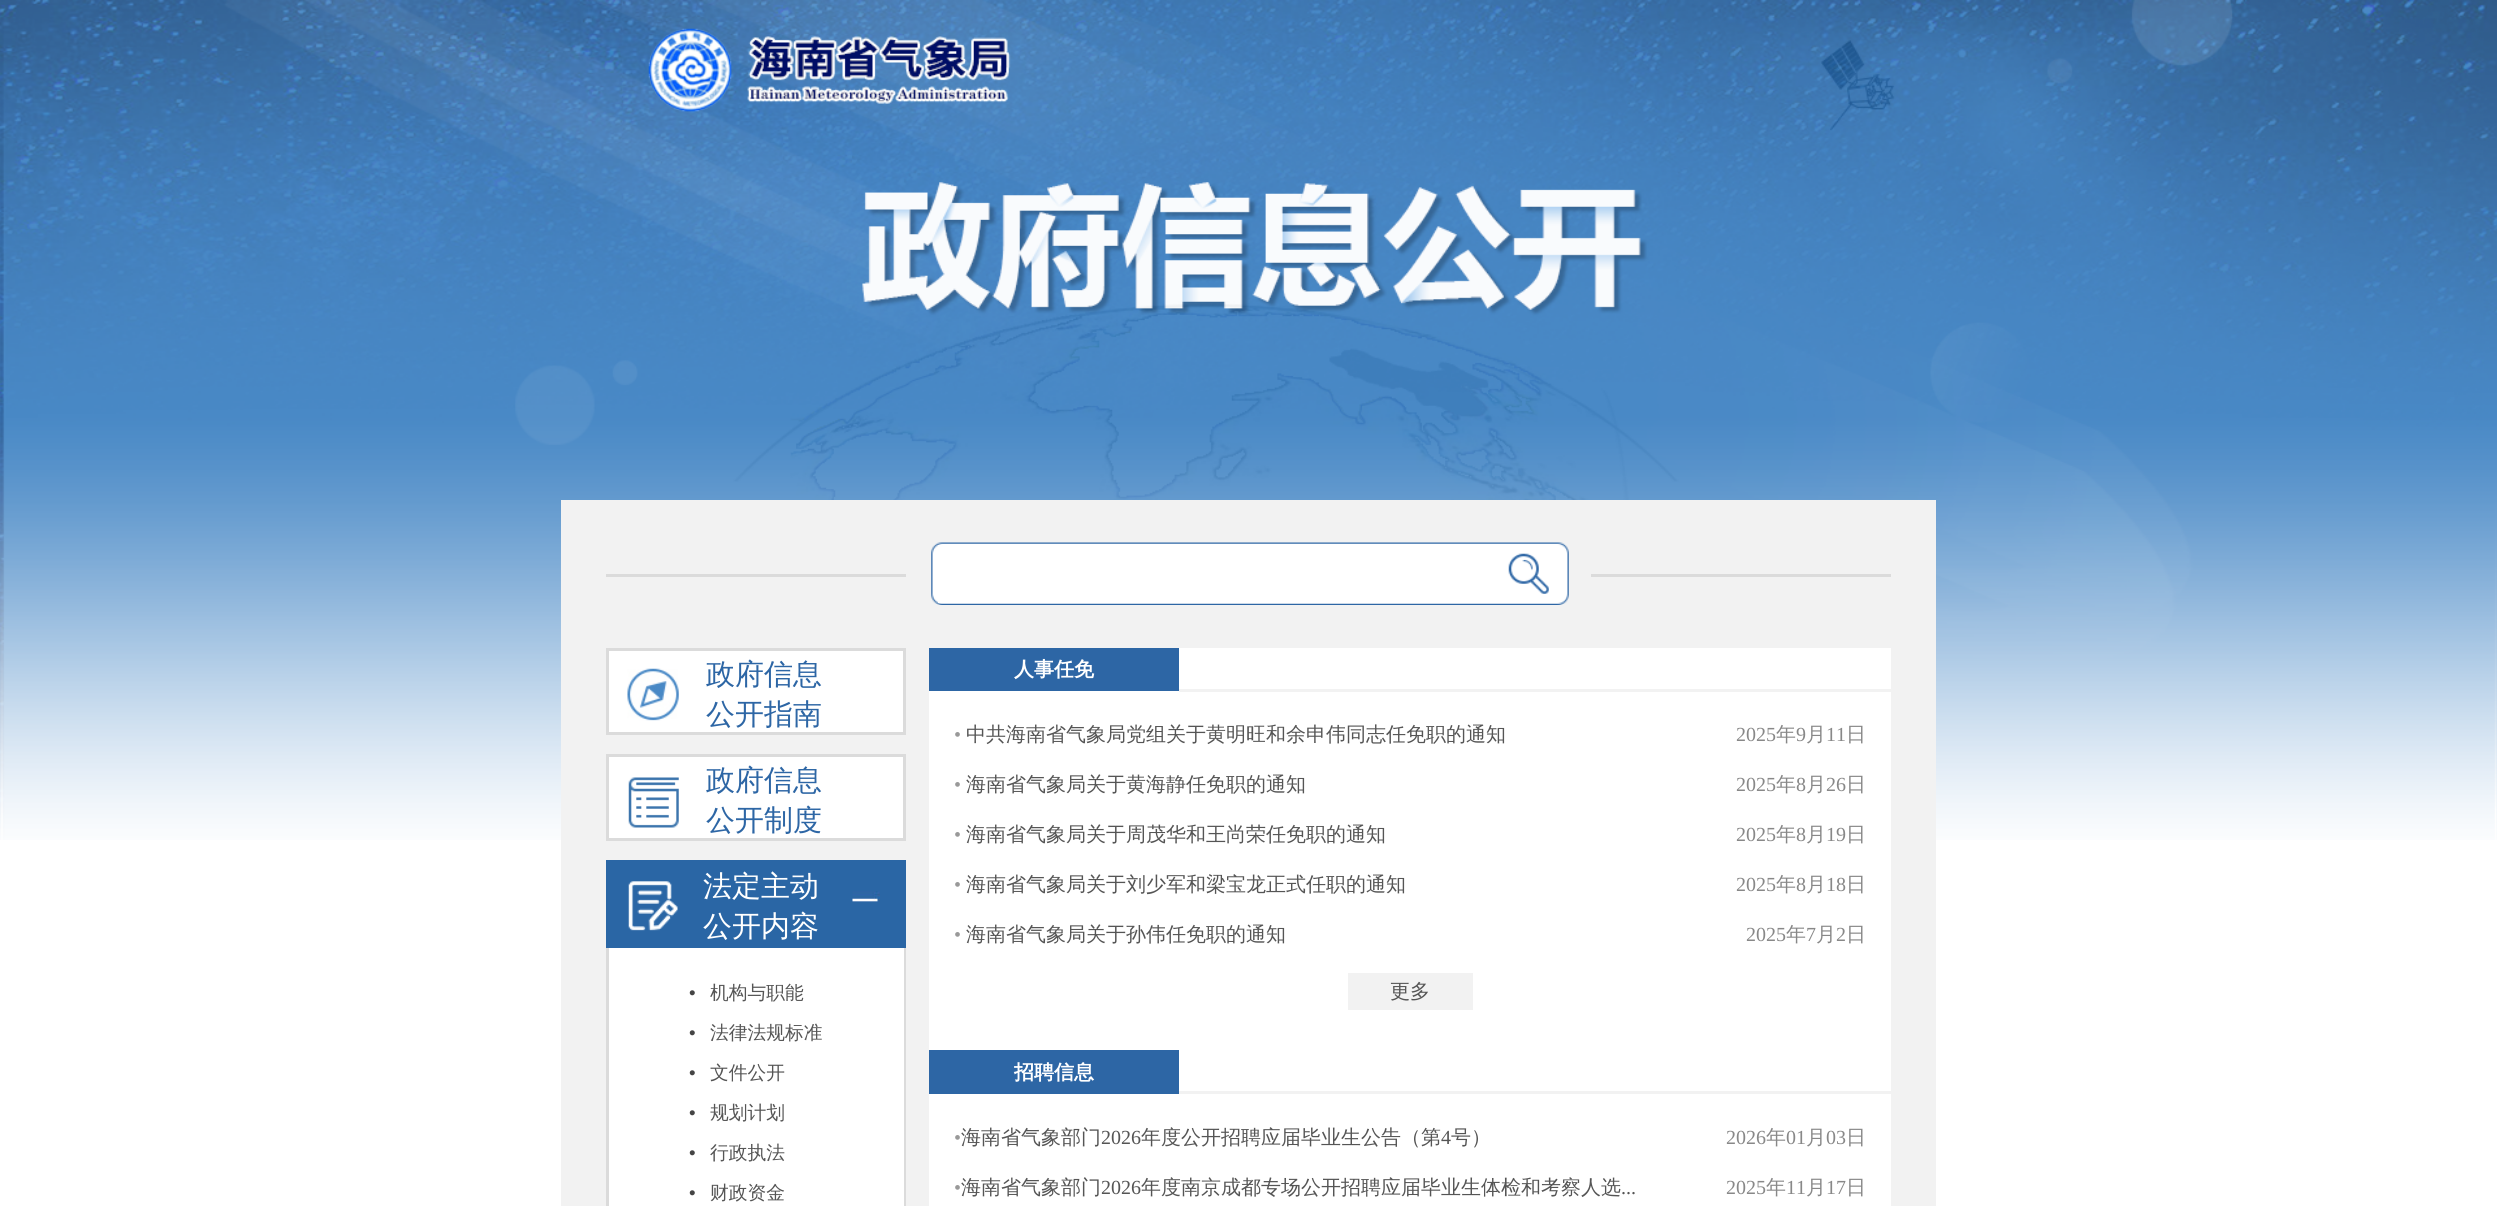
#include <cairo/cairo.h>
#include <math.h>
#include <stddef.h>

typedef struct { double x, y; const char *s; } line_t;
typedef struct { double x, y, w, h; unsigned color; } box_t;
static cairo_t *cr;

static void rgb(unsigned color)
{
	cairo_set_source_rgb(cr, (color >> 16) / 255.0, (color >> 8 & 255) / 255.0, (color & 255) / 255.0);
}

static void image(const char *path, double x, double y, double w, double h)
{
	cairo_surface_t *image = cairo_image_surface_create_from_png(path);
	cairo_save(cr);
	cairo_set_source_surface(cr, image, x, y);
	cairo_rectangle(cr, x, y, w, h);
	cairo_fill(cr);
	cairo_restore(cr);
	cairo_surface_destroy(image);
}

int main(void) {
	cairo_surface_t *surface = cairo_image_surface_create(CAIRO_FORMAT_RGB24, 2497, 1206);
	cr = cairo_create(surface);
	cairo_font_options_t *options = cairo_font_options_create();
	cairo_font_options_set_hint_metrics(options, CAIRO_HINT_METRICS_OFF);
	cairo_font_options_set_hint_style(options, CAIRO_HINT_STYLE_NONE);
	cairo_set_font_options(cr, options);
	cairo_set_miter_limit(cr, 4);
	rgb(0xffffff);
	cairo_paint(cr);
	image("img/1.png", 0, 0, 2497, 840);
	image("img/2.png", 648, 28, 363, 84);
	rgb(0xf2f2f2);
	cairo_rectangle(cr, 561, 500, 1375, 706);
	cairo_fill(cr);
	rgb(0xdbdbdb);
	cairo_rectangle(cr, 606, 574, 300, 3);
	cairo_fill(cr);
	image("img/3.png", 931, 542, 638, 63);
	rgb(0xffffff);
	cairo_rectangle(cr, 938, 545, 4, 58);
	cairo_fill(cr);
	image("img/4.png", 1508, 553, 41, 41);
	rgb(0xdbdbdb);
	cairo_rectangle(cr, 1591, 574, 300, 3);
	cairo_fill(cr);
	rgb(0xffffff);
	cairo_rectangle(cr, 607.5, 649.5, 297, 84);
	cairo_fill_preserve(cr);
	rgb(0xdbdbdb);
	cairo_set_line_width(cr, 3);
	cairo_stroke(cr);
	image("img/5.png", 627, 668, 52, 53);
	rgb(0xffffff);
	cairo_rectangle(cr, 607.5, 755.5, 297, 84);
	cairo_fill_preserve(cr);
	rgb(0xdbdbdb);
	cairo_stroke(cr);
	image("img/6.png", 628, 777, 51, 51);
	rgb(0x2a66a5);
	cairo_rectangle(cr, 606, 860, 300, 88);
	cairo_fill(cr);
	image("img/7.png", 628, 881, 50, 50);
	image("img/8.png", 852, 891, 28, 11);
	{
		static const box_t items[] = {
			{609, 948, 295, 258, 0xffffff},
			{904, 948, 2, 258, 0xdbdbdb},
			{606, 948, 3, 258, 0xdbdbdb},
			{929, 648, 962, 558, 0xffffff},
			{929, 648, 250, 43, 0x2d66a5},
			{1179, 689, 712, 3, 0xf2f2f2},
			{1348, 973, 125, 37, 0xf2f2f2},
			{929, 1050, 250, 44, 0x2d66a5},
			{1179, 1091, 712, 3, 0xf2f2f2},
		};
		for (size_t i = 0; i < sizeof items / sizeof *items; i++) {
			rgb(items[i].color);
			cairo_rectangle(cr, items[i].x, items[i].y, items[i].w, items[i].h);
			cairo_fill(cr);
		}
	}
	cairo_select_font_face(cr, "WenQuanYi Zen Hei Medium", CAIRO_FONT_SLANT_NORMAL, CAIRO_FONT_WEIGHT_NORMAL);
	cairo_set_font_size(cr, 29);
	rgb(0x2d66a5);
	{
		static const line_t items[] = {
			{706, 684, "政府信息"},
			{706, 724, "公开指南"},
			{706, 790, "政府信息"},
			{706, 830, "公开制度"},
		};
		for (size_t i = 0; i < sizeof items / sizeof *items; i++) {
			cairo_move_to(cr, items[i].x, items[i].y);
			cairo_show_text(cr, items[i].s);
		}
	}
	rgb(0xffffff);
	cairo_move_to(cr, 703, 896);
	cairo_show_text(cr, "法定主动");
	cairo_move_to(cr, 703, 936);
	cairo_show_text(cr, "公开内容");
	cairo_select_font_face(cr, "Liberation Sans", CAIRO_FONT_SLANT_NORMAL, CAIRO_FONT_WEIGHT_NORMAL);
	cairo_set_font_size(cr, 18.75);
	rgb(0x454545);
	cairo_move_to(cr, 689, 999);
	cairo_show_text(cr, "•");
	cairo_select_font_face(cr, "WenQuanYi Zen Hei Medium", CAIRO_FONT_SLANT_NORMAL, CAIRO_FONT_WEIGHT_NORMAL);
	rgb(0x555555);
	cairo_move_to(cr, 710, 999);
	cairo_show_text(cr, "机构与职能");
	cairo_select_font_face(cr, "Liberation Sans", CAIRO_FONT_SLANT_NORMAL, CAIRO_FONT_WEIGHT_NORMAL);
	rgb(0x454545);
	cairo_move_to(cr, 689, 1039);
	cairo_show_text(cr, "•");
	cairo_select_font_face(cr, "WenQuanYi Zen Hei Medium", CAIRO_FONT_SLANT_NORMAL, CAIRO_FONT_WEIGHT_NORMAL);
	rgb(0x555555);
	cairo_move_to(cr, 710, 1039);
	cairo_show_text(cr, "法律法规标准");
	cairo_select_font_face(cr, "Liberation Sans", CAIRO_FONT_SLANT_NORMAL, CAIRO_FONT_WEIGHT_NORMAL);
	rgb(0x454545);
	cairo_move_to(cr, 689, 1079);
	cairo_show_text(cr, "•");
	cairo_select_font_face(cr, "WenQuanYi Zen Hei Medium", CAIRO_FONT_SLANT_NORMAL, CAIRO_FONT_WEIGHT_NORMAL);
	rgb(0x555555);
	cairo_move_to(cr, 710, 1079);
	cairo_show_text(cr, "文件公开");
	cairo_select_font_face(cr, "Liberation Sans", CAIRO_FONT_SLANT_NORMAL, CAIRO_FONT_WEIGHT_NORMAL);
	rgb(0x454545);
	cairo_move_to(cr, 689, 1119);
	cairo_show_text(cr, "•");
	cairo_select_font_face(cr, "WenQuanYi Zen Hei Medium", CAIRO_FONT_SLANT_NORMAL, CAIRO_FONT_WEIGHT_NORMAL);
	rgb(0x555555);
	cairo_move_to(cr, 710, 1119);
	cairo_show_text(cr, "规划计划");
	cairo_select_font_face(cr, "Liberation Sans", CAIRO_FONT_SLANT_NORMAL, CAIRO_FONT_WEIGHT_NORMAL);
	rgb(0x454545);
	cairo_move_to(cr, 689, 1159);
	cairo_show_text(cr, "•");
	cairo_select_font_face(cr, "WenQuanYi Zen Hei Medium", CAIRO_FONT_SLANT_NORMAL, CAIRO_FONT_WEIGHT_NORMAL);
	rgb(0x555555);
	cairo_move_to(cr, 710, 1159);
	cairo_show_text(cr, "行政执法");
	cairo_select_font_face(cr, "Liberation Sans", CAIRO_FONT_SLANT_NORMAL, CAIRO_FONT_WEIGHT_NORMAL);
	rgb(0x454545);
	cairo_move_to(cr, 689, 1199);
	cairo_show_text(cr, "•");
	cairo_select_font_face(cr, "WenQuanYi Zen Hei Medium", CAIRO_FONT_SLANT_NORMAL, CAIRO_FONT_WEIGHT_NORMAL);
	rgb(0x555555);
	cairo_move_to(cr, 710, 1199);
	cairo_show_text(cr, "财政资金");
	cairo_select_font_face(cr, "WenQuanYi Zen Hei", CAIRO_FONT_SLANT_NORMAL, CAIRO_FONT_WEIGHT_BOLD);
	cairo_set_font_size(cr, 20);
	rgb(0xffffff);
	cairo_move_to(cr, 1014, 676);
	cairo_show_text(cr, "人事任免");
	cairo_select_font_face(cr, "Liberation Serif", CAIRO_FONT_SLANT_NORMAL, CAIRO_FONT_WEIGHT_NORMAL);
	rgb(0x999999);
	cairo_move_to(cr, 954, 741);
	cairo_show_text(cr, "•");
	cairo_select_font_face(cr, "WenQuanYi Zen Hei Medium", CAIRO_FONT_SLANT_NORMAL, CAIRO_FONT_WEIGHT_NORMAL);
	rgb(0x555555);
	cairo_move_to(cr, 966, 741);
	cairo_show_text(cr, "中共海南省气象局党组关于黄明旺和余申伟同志任免职的通知");
	cairo_select_font_face(cr, "Liberation Serif", CAIRO_FONT_SLANT_NORMAL, CAIRO_FONT_WEIGHT_NORMAL);
	rgb(0x888888);
	cairo_move_to(cr, 1736, 741);
	cairo_show_text(cr, "2025");
	cairo_select_font_face(cr, "WenQuanYi Zen Hei Medium", CAIRO_FONT_SLANT_NORMAL, CAIRO_FONT_WEIGHT_NORMAL);
	cairo_move_to(cr, 1776, 741);
	cairo_show_text(cr, "年");
	cairo_select_font_face(cr, "Liberation Serif", CAIRO_FONT_SLANT_NORMAL, CAIRO_FONT_WEIGHT_NORMAL);
	cairo_move_to(cr, 1796, 741);
	cairo_show_text(cr, "9");
	cairo_select_font_face(cr, "WenQuanYi Zen Hei Medium", CAIRO_FONT_SLANT_NORMAL, CAIRO_FONT_WEIGHT_NORMAL);
	cairo_move_to(cr, 1806, 741);
	cairo_show_text(cr, "月");
	cairo_select_font_face(cr, "Liberation Serif", CAIRO_FONT_SLANT_NORMAL, CAIRO_FONT_WEIGHT_NORMAL);
	cairo_move_to(cr, 1826, 741);
	cairo_show_text(cr, "11");
	cairo_select_font_face(cr, "WenQuanYi Zen Hei Medium", CAIRO_FONT_SLANT_NORMAL, CAIRO_FONT_WEIGHT_NORMAL);
	cairo_move_to(cr, 1846, 741);
	cairo_show_text(cr, "日");
	cairo_select_font_face(cr, "Liberation Serif", CAIRO_FONT_SLANT_NORMAL, CAIRO_FONT_WEIGHT_NORMAL);
	rgb(0x999999);
	cairo_move_to(cr, 954, 791);
	cairo_show_text(cr, "•");
	cairo_select_font_face(cr, "WenQuanYi Zen Hei Medium", CAIRO_FONT_SLANT_NORMAL, CAIRO_FONT_WEIGHT_NORMAL);
	rgb(0x555555);
	cairo_move_to(cr, 966, 791);
	cairo_show_text(cr, "海南省气象局关于黄海静任免职的通知");
	cairo_select_font_face(cr, "Liberation Serif", CAIRO_FONT_SLANT_NORMAL, CAIRO_FONT_WEIGHT_NORMAL);
	rgb(0x888888);
	cairo_move_to(cr, 1736, 791);
	cairo_show_text(cr, "2025");
	cairo_select_font_face(cr, "WenQuanYi Zen Hei Medium", CAIRO_FONT_SLANT_NORMAL, CAIRO_FONT_WEIGHT_NORMAL);
	cairo_move_to(cr, 1776, 791);
	cairo_show_text(cr, "年");
	cairo_select_font_face(cr, "Liberation Serif", CAIRO_FONT_SLANT_NORMAL, CAIRO_FONT_WEIGHT_NORMAL);
	cairo_move_to(cr, 1796, 791);
	cairo_show_text(cr, "8");
	cairo_select_font_face(cr, "WenQuanYi Zen Hei Medium", CAIRO_FONT_SLANT_NORMAL, CAIRO_FONT_WEIGHT_NORMAL);
	cairo_move_to(cr, 1806, 791);
	cairo_show_text(cr, "月");
	cairo_select_font_face(cr, "Liberation Serif", CAIRO_FONT_SLANT_NORMAL, CAIRO_FONT_WEIGHT_NORMAL);
	cairo_move_to(cr, 1826, 791);
	cairo_show_text(cr, "26");
	cairo_select_font_face(cr, "WenQuanYi Zen Hei Medium", CAIRO_FONT_SLANT_NORMAL, CAIRO_FONT_WEIGHT_NORMAL);
	cairo_move_to(cr, 1846, 791);
	cairo_show_text(cr, "日");
	cairo_select_font_face(cr, "Liberation Serif", CAIRO_FONT_SLANT_NORMAL, CAIRO_FONT_WEIGHT_NORMAL);
	rgb(0x999999);
	cairo_move_to(cr, 954, 841);
	cairo_show_text(cr, "•");
	cairo_select_font_face(cr, "WenQuanYi Zen Hei Medium", CAIRO_FONT_SLANT_NORMAL, CAIRO_FONT_WEIGHT_NORMAL);
	rgb(0x555555);
	cairo_move_to(cr, 966, 841);
	cairo_show_text(cr, "海南省气象局关于周茂华和王尚荣任免职的通知");
	cairo_select_font_face(cr, "Liberation Serif", CAIRO_FONT_SLANT_NORMAL, CAIRO_FONT_WEIGHT_NORMAL);
	rgb(0x888888);
	cairo_move_to(cr, 1736, 841);
	cairo_show_text(cr, "2025");
	cairo_select_font_face(cr, "WenQuanYi Zen Hei Medium", CAIRO_FONT_SLANT_NORMAL, CAIRO_FONT_WEIGHT_NORMAL);
	cairo_move_to(cr, 1776, 841);
	cairo_show_text(cr, "年");
	cairo_select_font_face(cr, "Liberation Serif", CAIRO_FONT_SLANT_NORMAL, CAIRO_FONT_WEIGHT_NORMAL);
	cairo_move_to(cr, 1796, 841);
	cairo_show_text(cr, "8");
	cairo_select_font_face(cr, "WenQuanYi Zen Hei Medium", CAIRO_FONT_SLANT_NORMAL, CAIRO_FONT_WEIGHT_NORMAL);
	cairo_move_to(cr, 1806, 841);
	cairo_show_text(cr, "月");
	cairo_select_font_face(cr, "Liberation Serif", CAIRO_FONT_SLANT_NORMAL, CAIRO_FONT_WEIGHT_NORMAL);
	cairo_move_to(cr, 1826, 841);
	cairo_show_text(cr, "19");
	cairo_select_font_face(cr, "WenQuanYi Zen Hei Medium", CAIRO_FONT_SLANT_NORMAL, CAIRO_FONT_WEIGHT_NORMAL);
	cairo_move_to(cr, 1846, 841);
	cairo_show_text(cr, "日");
	cairo_select_font_face(cr, "Liberation Serif", CAIRO_FONT_SLANT_NORMAL, CAIRO_FONT_WEIGHT_NORMAL);
	rgb(0x999999);
	cairo_move_to(cr, 954, 891);
	cairo_show_text(cr, "•");
	cairo_select_font_face(cr, "WenQuanYi Zen Hei Medium", CAIRO_FONT_SLANT_NORMAL, CAIRO_FONT_WEIGHT_NORMAL);
	rgb(0x555555);
	cairo_move_to(cr, 966, 891);
	cairo_show_text(cr, "海南省气象局关于刘少军和梁宝龙正式任职的通知");
	cairo_select_font_face(cr, "Liberation Serif", CAIRO_FONT_SLANT_NORMAL, CAIRO_FONT_WEIGHT_NORMAL);
	rgb(0x888888);
	cairo_move_to(cr, 1736, 891);
	cairo_show_text(cr, "2025");
	cairo_select_font_face(cr, "WenQuanYi Zen Hei Medium", CAIRO_FONT_SLANT_NORMAL, CAIRO_FONT_WEIGHT_NORMAL);
	cairo_move_to(cr, 1776, 891);
	cairo_show_text(cr, "年");
	cairo_select_font_face(cr, "Liberation Serif", CAIRO_FONT_SLANT_NORMAL, CAIRO_FONT_WEIGHT_NORMAL);
	cairo_move_to(cr, 1796, 891);
	cairo_show_text(cr, "8");
	cairo_select_font_face(cr, "WenQuanYi Zen Hei Medium", CAIRO_FONT_SLANT_NORMAL, CAIRO_FONT_WEIGHT_NORMAL);
	cairo_move_to(cr, 1806, 891);
	cairo_show_text(cr, "月");
	cairo_select_font_face(cr, "Liberation Serif", CAIRO_FONT_SLANT_NORMAL, CAIRO_FONT_WEIGHT_NORMAL);
	cairo_move_to(cr, 1826, 891);
	cairo_show_text(cr, "18");
	cairo_select_font_face(cr, "WenQuanYi Zen Hei Medium", CAIRO_FONT_SLANT_NORMAL, CAIRO_FONT_WEIGHT_NORMAL);
	cairo_move_to(cr, 1846, 891);
	cairo_show_text(cr, "日");
	cairo_select_font_face(cr, "Liberation Serif", CAIRO_FONT_SLANT_NORMAL, CAIRO_FONT_WEIGHT_NORMAL);
	rgb(0x999999);
	cairo_move_to(cr, 954, 941);
	cairo_show_text(cr, "•");
	cairo_select_font_face(cr, "WenQuanYi Zen Hei Medium", CAIRO_FONT_SLANT_NORMAL, CAIRO_FONT_WEIGHT_NORMAL);
	rgb(0x555555);
	cairo_move_to(cr, 966, 941);
	cairo_show_text(cr, "海南省气象局关于孙伟任免职的通知");
	cairo_select_font_face(cr, "Liberation Serif", CAIRO_FONT_SLANT_NORMAL, CAIRO_FONT_WEIGHT_NORMAL);
	rgb(0x888888);
	cairo_move_to(cr, 1746, 941);
	cairo_show_text(cr, "2025");
	cairo_select_font_face(cr, "WenQuanYi Zen Hei Medium", CAIRO_FONT_SLANT_NORMAL, CAIRO_FONT_WEIGHT_NORMAL);
	cairo_move_to(cr, 1786, 941);
	cairo_show_text(cr, "年");
	cairo_select_font_face(cr, "Liberation Serif", CAIRO_FONT_SLANT_NORMAL, CAIRO_FONT_WEIGHT_NORMAL);
	cairo_move_to(cr, 1806, 941);
	cairo_show_text(cr, "7");
	cairo_select_font_face(cr, "WenQuanYi Zen Hei Medium", CAIRO_FONT_SLANT_NORMAL, CAIRO_FONT_WEIGHT_NORMAL);
	cairo_move_to(cr, 1816, 941);
	cairo_show_text(cr, "月");
	cairo_select_font_face(cr, "Liberation Serif", CAIRO_FONT_SLANT_NORMAL, CAIRO_FONT_WEIGHT_NORMAL);
	cairo_move_to(cr, 1836, 941);
	cairo_show_text(cr, "2");
	cairo_select_font_face(cr, "WenQuanYi Zen Hei Medium", CAIRO_FONT_SLANT_NORMAL, CAIRO_FONT_WEIGHT_NORMAL);
	cairo_move_to(cr, 1846, 941);
	cairo_show_text(cr, "日");
	rgb(0x555555);
	cairo_move_to(cr, 1390, 998);
	cairo_show_text(cr, "更多");
	cairo_select_font_face(cr, "WenQuanYi Zen Hei", CAIRO_FONT_SLANT_NORMAL, CAIRO_FONT_WEIGHT_BOLD);
	rgb(0xffffff);
	cairo_move_to(cr, 1014, 1079);
	cairo_show_text(cr, "招聘信息");
	cairo_select_font_face(cr, "Liberation Serif", CAIRO_FONT_SLANT_NORMAL, CAIRO_FONT_WEIGHT_NORMAL);
	rgb(0x999999);
	cairo_move_to(cr, 954, 1144);
	cairo_show_text(cr, "•");
	cairo_select_font_face(cr, "WenQuanYi Zen Hei Medium", CAIRO_FONT_SLANT_NORMAL, CAIRO_FONT_WEIGHT_NORMAL);
	rgb(0x555555);
	cairo_move_to(cr, 961, 1144);
	cairo_show_text(cr, "海南省气象部门");
	cairo_select_font_face(cr, "Liberation Serif", CAIRO_FONT_SLANT_NORMAL, CAIRO_FONT_WEIGHT_NORMAL);
	cairo_move_to(cr, 1101, 1144);
	cairo_show_text(cr, "2026");
	cairo_select_font_face(cr, "WenQuanYi Zen Hei Medium", CAIRO_FONT_SLANT_NORMAL, CAIRO_FONT_WEIGHT_NORMAL);
	cairo_move_to(cr, 1141, 1144);
	cairo_show_text(cr, "年度公开招聘应届毕业生公告（第");
	cairo_select_font_face(cr, "Liberation Serif", CAIRO_FONT_SLANT_NORMAL, CAIRO_FONT_WEIGHT_NORMAL);
	cairo_move_to(cr, 1441, 1144);
	cairo_show_text(cr, "4");
	cairo_select_font_face(cr, "WenQuanYi Zen Hei Medium", CAIRO_FONT_SLANT_NORMAL, CAIRO_FONT_WEIGHT_NORMAL);
	cairo_move_to(cr, 1451, 1144);
	cairo_show_text(cr, "号）");
	cairo_select_font_face(cr, "Liberation Serif", CAIRO_FONT_SLANT_NORMAL, CAIRO_FONT_WEIGHT_NORMAL);
	rgb(0x888888);
	cairo_move_to(cr, 1726, 1144);
	cairo_show_text(cr, "2026");
	cairo_select_font_face(cr, "WenQuanYi Zen Hei Medium", CAIRO_FONT_SLANT_NORMAL, CAIRO_FONT_WEIGHT_NORMAL);
	cairo_move_to(cr, 1766, 1144);
	cairo_show_text(cr, "年");
	cairo_select_font_face(cr, "Liberation Serif", CAIRO_FONT_SLANT_NORMAL, CAIRO_FONT_WEIGHT_NORMAL);
	cairo_move_to(cr, 1786, 1144);
	cairo_show_text(cr, "01");
	cairo_select_font_face(cr, "WenQuanYi Zen Hei Medium", CAIRO_FONT_SLANT_NORMAL, CAIRO_FONT_WEIGHT_NORMAL);
	cairo_move_to(cr, 1806, 1144);
	cairo_show_text(cr, "月");
	cairo_select_font_face(cr, "Liberation Serif", CAIRO_FONT_SLANT_NORMAL, CAIRO_FONT_WEIGHT_NORMAL);
	cairo_move_to(cr, 1826, 1144);
	cairo_show_text(cr, "03");
	cairo_select_font_face(cr, "WenQuanYi Zen Hei Medium", CAIRO_FONT_SLANT_NORMAL, CAIRO_FONT_WEIGHT_NORMAL);
	cairo_move_to(cr, 1846, 1144);
	cairo_show_text(cr, "日");
	cairo_select_font_face(cr, "Liberation Serif", CAIRO_FONT_SLANT_NORMAL, CAIRO_FONT_WEIGHT_NORMAL);
	rgb(0x999999);
	cairo_move_to(cr, 954, 1194);
	cairo_show_text(cr, "•");
	cairo_select_font_face(cr, "WenQuanYi Zen Hei Medium", CAIRO_FONT_SLANT_NORMAL, CAIRO_FONT_WEIGHT_NORMAL);
	rgb(0x555555);
	cairo_move_to(cr, 961, 1194);
	cairo_show_text(cr, "海南省气象部门");
	cairo_select_font_face(cr, "Liberation Serif", CAIRO_FONT_SLANT_NORMAL, CAIRO_FONT_WEIGHT_NORMAL);
	cairo_move_to(cr, 1101, 1194);
	cairo_show_text(cr, "2026");
	cairo_select_font_face(cr, "WenQuanYi Zen Hei Medium", CAIRO_FONT_SLANT_NORMAL, CAIRO_FONT_WEIGHT_NORMAL);
	cairo_move_to(cr, 1141, 1194);
	cairo_show_text(cr, "年度南京成都专场公开招聘应届毕业生体检和考察人选");
	cairo_select_font_face(cr, "Liberation Serif", CAIRO_FONT_SLANT_NORMAL, CAIRO_FONT_WEIGHT_NORMAL);
	rgb(0x888888);
	cairo_move_to(cr, 1726, 1194);
	cairo_show_text(cr, "2025");
	cairo_select_font_face(cr, "WenQuanYi Zen Hei Medium", CAIRO_FONT_SLANT_NORMAL, CAIRO_FONT_WEIGHT_NORMAL);
	cairo_move_to(cr, 1766, 1194);
	cairo_show_text(cr, "年");
	cairo_select_font_face(cr, "Liberation Serif", CAIRO_FONT_SLANT_NORMAL, CAIRO_FONT_WEIGHT_NORMAL);
	cairo_move_to(cr, 1786, 1194);
	cairo_show_text(cr, "11");
	cairo_select_font_face(cr, "WenQuanYi Zen Hei Medium", CAIRO_FONT_SLANT_NORMAL, CAIRO_FONT_WEIGHT_NORMAL);
	cairo_move_to(cr, 1806, 1194);
	cairo_show_text(cr, "月");
	cairo_select_font_face(cr, "Liberation Serif", CAIRO_FONT_SLANT_NORMAL, CAIRO_FONT_WEIGHT_NORMAL);
	cairo_move_to(cr, 1826, 1194);
	cairo_show_text(cr, "17");
	cairo_select_font_face(cr, "WenQuanYi Zen Hei Medium", CAIRO_FONT_SLANT_NORMAL, CAIRO_FONT_WEIGHT_NORMAL);
	cairo_move_to(cr, 1846, 1194);
	cairo_show_text(cr, "日");
	cairo_select_font_face(cr, "Liberation Serif", CAIRO_FONT_SLANT_NORMAL, CAIRO_FONT_WEIGHT_NORMAL);
	rgb(0x555555);
	cairo_move_to(cr, 1621, 1194);
	cairo_show_text(cr, "...");
	cairo_surface_write_to_png(surface, "page.png");
	cairo_font_options_destroy(options);
	cairo_destroy(cr);
	cairo_surface_destroy(surface);
	return 0;
}
